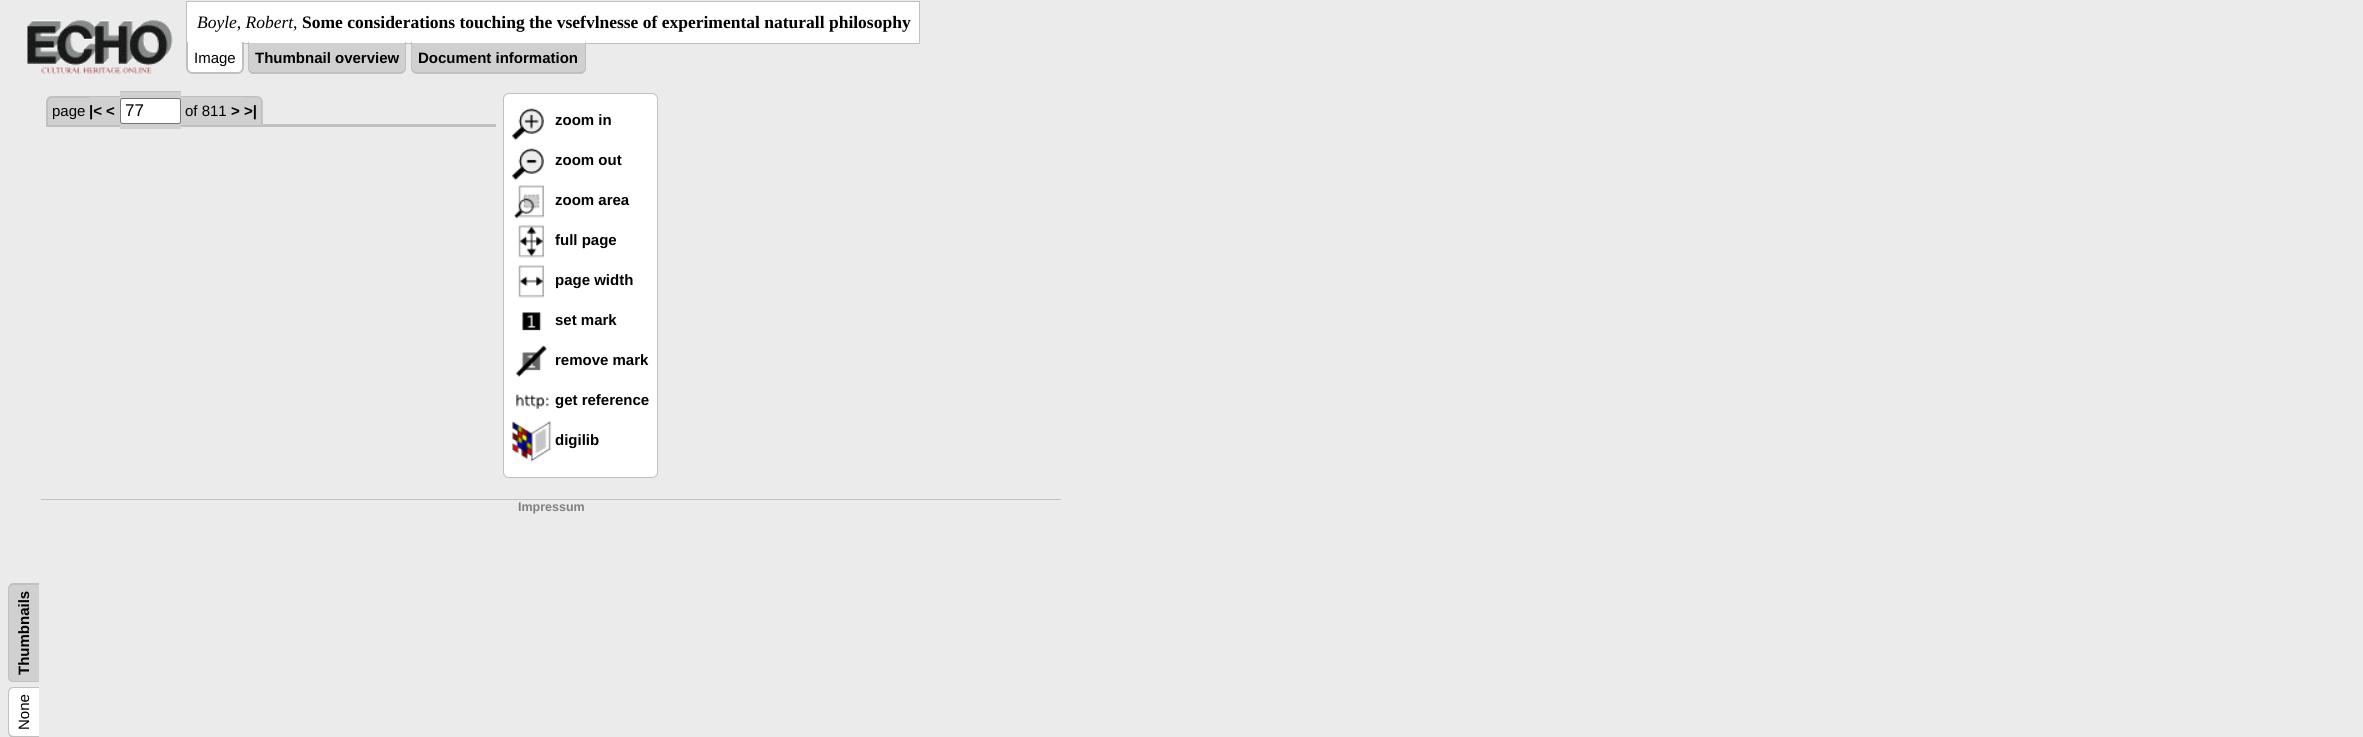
#include <cairo/cairo.h>
#include <math.h>
#include <stddef.h>

typedef struct { double x, y; const char *s; } line_t;
typedef struct { double x, y, w, h; unsigned color; } box_t;
static cairo_t *cr;

static void rgb(unsigned color)
{
	cairo_set_source_rgb(cr, (color >> 16) / 255.0, (color >> 8 & 255) / 255.0, (color & 255) / 255.0);
}

static void rrect(double x, double y, double w, double h, double r)
{
	cairo_new_sub_path(cr);
	cairo_arc(cr, x + w - r, y + h - r, r, 0, M_PI / 2);
	cairo_arc(cr, x + r, y + h - r, r, M_PI / 2, M_PI);
	cairo_arc(cr, x + r, y + r, r, M_PI, 1.5 * M_PI);
	cairo_arc(cr, x + w - r, y + r, r, 1.5 * M_PI, 2 * M_PI);
	cairo_close_path(cr);
}

static void image(const char *path, double x, double y, double w, double h)
{
	cairo_surface_t *image = cairo_image_surface_create_from_png(path);
	cairo_save(cr);
	cairo_set_source_surface(cr, image, x, y);
	cairo_rectangle(cr, x, y, w, h);
	cairo_fill(cr);
	cairo_restore(cr);
	cairo_surface_destroy(image);
}

int main(void) {
	cairo_surface_t *surface = cairo_image_surface_create(CAIRO_FORMAT_RGB24, 2363, 737);
	cr = cairo_create(surface);
	cairo_font_options_t *options = cairo_font_options_create();
	cairo_font_options_set_hint_metrics(options, CAIRO_HINT_METRICS_OFF);
	cairo_font_options_set_hint_style(options, CAIRO_HINT_STYLE_NONE);
	cairo_set_font_options(cr, options);
	cairo_set_miter_limit(cr, 4);
	rgb(0xebebeb);
	cairo_paint(cr);
	image("img/1.png", 27, 20, 146, 54);
	rgb(0xffffff);
	cairo_rectangle(cr, 186.5, 1.5, 733, 42);
	cairo_fill_preserve(cr);
	rgb(0xc0c0c0);
	cairo_set_line_width(cr, 1);
	cairo_stroke(cr);
	rgb(0xffffff);
	cairo_new_path(cr);
	cairo_move_to(cr, 186, 43);
	cairo_line_to(cr, 244, 43);
	cairo_line_to(cr, 244, 68);
	cairo_curve_to(cr, 244, 71.5, 241.5, 74, 238, 74);
	cairo_line_to(cr, 192, 74);
	cairo_curve_to(cr, 188.5, 74, 186, 71.5, 186, 68);
	cairo_close_path(cr);
	cairo_fill(cr);
	rgb(0xc0c0c0);
	cairo_set_fill_rule(cr, CAIRO_FILL_RULE_EVEN_ODD);
	cairo_new_path(cr);
	cairo_move_to(cr, 186, 42);
	cairo_line_to(cr, 244, 42);
	cairo_line_to(cr, 244, 68);
	cairo_curve_to(cr, 244, 71, 241, 74, 238, 74);
	cairo_line_to(cr, 192, 74);
	cairo_curve_to(cr, 189, 74, 186, 71, 186, 68);
	cairo_close_path(cr);
	cairo_move_to(cr, 188, 42);
	cairo_line_to(cr, 242, 42);
	cairo_line_to(cr, 242, 68);
	cairo_curve_to(cr, 242, 70, 240, 72, 238, 72);
	cairo_line_to(cr, 192, 72);
	cairo_curve_to(cr, 190, 72, 188, 70, 188, 68);
	cairo_close_path(cr);
	cairo_fill(cr);
	rgb(0xd0d0d0);
	cairo_new_path(cr);
	cairo_move_to(cr, 248, 43);
	cairo_line_to(cr, 406, 43);
	cairo_line_to(cr, 406, 68);
	cairo_curve_to(cr, 406, 71.5, 403.5, 74, 400, 74);
	cairo_line_to(cr, 254, 74);
	cairo_curve_to(cr, 250.5, 74, 248, 71.5, 248, 68);
	cairo_close_path(cr);
	cairo_fill(cr);
	rgb(0xc0c0c0);
	cairo_new_path(cr);
	cairo_move_to(cr, 248, 42);
	cairo_line_to(cr, 406, 42);
	cairo_line_to(cr, 406, 68);
	cairo_curve_to(cr, 406, 71, 403, 74, 400, 74);
	cairo_line_to(cr, 254, 74);
	cairo_curve_to(cr, 250, 74, 248, 71, 248, 68);
	cairo_close_path(cr);
	cairo_move_to(cr, 249, 42);
	cairo_line_to(cr, 405, 42);
	cairo_line_to(cr, 405, 68);
	cairo_curve_to(cr, 405, 70, 403, 72, 400, 72);
	cairo_line_to(cr, 254, 72);
	cairo_curve_to(cr, 251, 72, 249, 70, 249, 68);
	cairo_close_path(cr);
	cairo_fill(cr);
	rgb(0xd0d0d0);
	cairo_new_path(cr);
	cairo_move_to(cr, 411, 43);
	cairo_line_to(cr, 586, 43);
	cairo_line_to(cr, 586, 68);
	cairo_curve_to(cr, 586, 71.5, 583.5, 74, 580, 74);
	cairo_line_to(cr, 417, 74);
	cairo_curve_to(cr, 413.5, 74, 411, 71.5, 411, 68);
	cairo_close_path(cr);
	cairo_fill(cr);
	rgb(0xc0c0c0);
	cairo_new_path(cr);
	cairo_move_to(cr, 411, 42);
	cairo_line_to(cr, 586, 42);
	cairo_line_to(cr, 586, 68);
	cairo_curve_to(cr, 586, 71, 583, 74, 580, 74);
	cairo_line_to(cr, 418, 74);
	cairo_curve_to(cr, 414, 74, 411, 71, 411, 68);
	cairo_close_path(cr);
	cairo_move_to(cr, 412, 42);
	cairo_line_to(cr, 585, 42);
	cairo_line_to(cr, 585, 68);
	cairo_curve_to(cr, 585, 70, 583, 72, 580, 72);
	cairo_line_to(cr, 418, 72);
	cairo_curve_to(cr, 415, 72, 412, 70, 412, 68);
	cairo_close_path(cr);
	cairo_fill(cr);
	cairo_rectangle(cr, 46, 124, 450, 3);
	cairo_fill(cr);
	rgb(0xd0d0d0);
	cairo_new_path(cr);
	cairo_move_to(cr, 52, 96);
	cairo_line_to(cr, 90, 96);
	cairo_line_to(cr, 90, 125);
	cairo_line_to(cr, 46, 125);
	cairo_line_to(cr, 46, 102);
	cairo_curve_to(cr, 46, 98.5, 48.5, 96, 52, 96);
	cairo_close_path(cr);
	cairo_fill(cr);
	rgb(0xc0c0c0);
	cairo_new_path(cr);
	cairo_move_to(cr, 52, 96);
	cairo_line_to(cr, 90, 96);
	cairo_line_to(cr, 90, 125);
	cairo_line_to(cr, 46, 125);
	cairo_line_to(cr, 46, 102);
	cairo_curve_to(cr, 46, 99, 49, 96, 52, 96);
	cairo_close_path(cr);
	cairo_move_to(cr, 52, 98);
	cairo_line_to(cr, 90, 98);
	cairo_line_to(cr, 90, 125);
	cairo_line_to(cr, 48, 125);
	cairo_line_to(cr, 48, 102);
	cairo_curve_to(cr, 48, 100, 50, 98, 52, 98);
	cairo_close_path(cr);
	cairo_fill(cr);
	{
		static const box_t items[] = {
			{90, 97, 13, 28, 0xd0d0d0},
			{90, 96, 13, 1, 0xc0c0c0},
			{103, 96, 3, 29, 0xd0d0d0},
			{103, 96, 12, 1, 0xc0c0c0},
			{106, 97, 9, 28, 0xd0d0d0},
			{115, 96, 5, 29, 0xd0d0d0},
			{115, 96, 5, 1, 0xc0c0c0},
			{120, 92, 61, 37, 0xd0d0d0},
			{120, 91, 61, 1, 0xc0c0c0},
			{181, 96, 4, 29, 0xd0d0d0},
			{181, 96, 59, 1, 0xc0c0c0},
			{185, 97, 55, 28, 0xd0d0d0},
			{240, 96, 4, 29, 0xd0d0d0},
			{240, 96, 4, 1, 0xc0c0c0},
		};
		for (size_t i = 0; i < sizeof items / sizeof *items; i++) {
			rgb(items[i].color);
			cairo_rectangle(cr, items[i].x, items[i].y, items[i].w, items[i].h);
			cairo_fill(cr);
		}
	}
	rgb(0xd0d0d0);
	cairo_new_path(cr);
	cairo_move_to(cr, 244, 96);
	cairo_line_to(cr, 257, 96);
	cairo_curve_to(cr, 260.5, 96, 263, 98.5, 263, 102);
	cairo_line_to(cr, 263, 125);
	cairo_line_to(cr, 244, 125);
	cairo_close_path(cr);
	cairo_fill(cr);
	rgb(0xc0c0c0);
	cairo_new_path(cr);
	cairo_move_to(cr, 244, 96);
	cairo_line_to(cr, 256, 96);
	cairo_curve_to(cr, 259.5, 96, 262.5, 99, 262.5, 102.5);
	cairo_line_to(cr, 262.5, 125);
	cairo_line_to(cr, 244, 125);
	cairo_close_path(cr);
	cairo_move_to(cr, 244, 97.5);
	cairo_line_to(cr, 256, 97.5);
	cairo_curve_to(cr, 259, 97.5, 261, 99.5, 261, 102.5);
	cairo_line_to(cr, 261, 125);
	cairo_line_to(cr, 244, 125);
	cairo_close_path(cr);
	cairo_fill(cr);
	rgb(0xffffff);
	rrect(120.5, 98.5, 60, 25, 2);
	cairo_fill_preserve(cr);
	rgb(0x767676);
	cairo_stroke(cr);
	rgb(0xffffff);
	rrect(503.5, 93.5, 154, 384, 5.5);
	cairo_fill_preserve(cr);
	rgb(0xc0c0c0);
	cairo_stroke(cr);
	image("img/2.png", 511, 108, 33, 33);
	image("img/3.png", 511, 148, 33, 33);
	image("img/4.png", 513, 185, 32, 34);
	image("img/5.png", 518, 225, 27, 33);
	image("img/6.png", 518, 265, 27, 33);
	image("img/7.png", 522, 312, 20, 19);
	image("img/8.png", 516, 345, 31, 32);
	image("img/9.png", 516, 393, 33, 16);
	image("img/10.png", 512, 421, 40, 41);
	rgb(0xd0d0d0);
	cairo_set_fill_rule(cr, CAIRO_FILL_RULE_WINDING);
	cairo_new_path(cr);
	cairo_move_to(cr, 8, 676);
	cairo_line_to(cr, 8, 590);
	cairo_curve_to(cr, 8, 586, 10, 583, 14, 583);
	cairo_line_to(cr, 39, 583);
	cairo_line_to(cr, 39, 682);
	cairo_line_to(cr, 14, 682);
	cairo_curve_to(cr, 10, 682, 8, 680, 8, 676);
	cairo_close_path(cr);
	cairo_fill(cr);
	rgb(0xc0c0c0);
	cairo_set_fill_rule(cr, CAIRO_FILL_RULE_EVEN_ODD);
	cairo_new_path(cr);
	cairo_move_to(cr, 8, 676);
	cairo_line_to(cr, 8, 590);
	cairo_curve_to(cr, 8, 586, 10, 583, 14, 583);
	cairo_line_to(cr, 39, 583);
	cairo_line_to(cr, 39, 682);
	cairo_line_to(cr, 14, 682);
	cairo_curve_to(cr, 10, 682, 8, 680, 8, 676);
	cairo_close_path(cr);
	cairo_move_to(cr, 9, 676);
	cairo_line_to(cr, 9, 590);
	cairo_curve_to(cr, 9, 587, 11, 585, 14, 585);
	cairo_line_to(cr, 39, 585);
	cairo_line_to(cr, 39, 681);
	cairo_line_to(cr, 14, 681);
	cairo_curve_to(cr, 11, 681, 9, 679, 9, 676);
	cairo_close_path(cr);
	cairo_fill(cr);
	rgb(0xffffff);
	cairo_set_fill_rule(cr, CAIRO_FILL_RULE_WINDING);
	cairo_new_path(cr);
	cairo_move_to(cr, 8, 731);
	cairo_line_to(cr, 8, 693);
	cairo_curve_to(cr, 8, 689, 10, 687, 14, 687);
	cairo_line_to(cr, 39, 687);
	cairo_line_to(cr, 39, 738);
	cairo_line_to(cr, 14, 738);
	cairo_curve_to(cr, 10, 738, 8, 735, 8, 731);
	cairo_close_path(cr);
	cairo_fill(cr);
	rgb(0xc0c0c0);
	cairo_set_fill_rule(cr, CAIRO_FILL_RULE_EVEN_ODD);
	cairo_new_path(cr);
	cairo_move_to(cr, 8, 731);
	cairo_line_to(cr, 8, 693);
	cairo_curve_to(cr, 8, 689, 10, 687, 14, 687);
	cairo_line_to(cr, 39, 687);
	cairo_line_to(cr, 39, 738);
	cairo_line_to(cr, 14, 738);
	cairo_curve_to(cr, 10, 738, 8, 735, 8, 731);
	cairo_close_path(cr);
	cairo_move_to(cr, 9, 731);
	cairo_line_to(cr, 9, 693);
	cairo_curve_to(cr, 9, 690, 11, 688, 14, 688);
	cairo_line_to(cr, 39, 688);
	cairo_line_to(cr, 39, 736);
	cairo_line_to(cr, 14, 736);
	cairo_curve_to(cr, 11, 736, 9, 734, 9, 731);
	cairo_close_path(cr);
	cairo_fill(cr);
	cairo_rectangle(cr, 41, 499, 1020, 1);
	cairo_fill(cr);
	cairo_select_font_face(cr, "Liberation Serif", CAIRO_FONT_SLANT_ITALIC, CAIRO_FONT_WEIGHT_NORMAL);
	cairo_set_font_size(cr, 17.5);
	rgb(0x000000);
	cairo_move_to(cr, 197, 28);
	cairo_show_text(cr, "Boyle, Robert");
	cairo_select_font_face(cr, "Liberation Serif", CAIRO_FONT_SLANT_NORMAL, CAIRO_FONT_WEIGHT_NORMAL);
	cairo_move_to(cr, 293, 28);
	cairo_show_text(cr, ",");
	cairo_select_font_face(cr, "Liberation Serif", CAIRO_FONT_SLANT_NORMAL, CAIRO_FONT_WEIGHT_BOLD);
	cairo_move_to(cr, 302, 28);
	cairo_show_text(cr, "Some considerations touching the vsefvlnesse of experimental naturall philosophy");
	cairo_select_font_face(cr, "Liberation Sans", CAIRO_FONT_SLANT_NORMAL, CAIRO_FONT_WEIGHT_NORMAL);
	cairo_set_font_size(cr, 15);
	cairo_move_to(cr, 194, 63);
	cairo_show_text(cr, "Image");
	cairo_select_font_face(cr, "Liberation Sans", CAIRO_FONT_SLANT_NORMAL, CAIRO_FONT_WEIGHT_BOLD);
	cairo_move_to(cr, 255, 63);
	cairo_show_text(cr, "Thumbnail overview");
	cairo_move_to(cr, 418, 63);
	cairo_show_text(cr, "Document information");
	cairo_select_font_face(cr, "Liberation Sans", CAIRO_FONT_SLANT_NORMAL, CAIRO_FONT_WEIGHT_NORMAL);
	cairo_move_to(cr, 52, 116);
	cairo_show_text(cr, "page");
	cairo_select_font_face(cr, "Liberation Sans", CAIRO_FONT_SLANT_NORMAL, CAIRO_FONT_WEIGHT_BOLD);
	cairo_move_to(cr, 89, 116);
	cairo_show_text(cr, "|< <");
	cairo_select_font_face(cr, "Liberation Sans", CAIRO_FONT_SLANT_NORMAL, CAIRO_FONT_WEIGHT_NORMAL);
	cairo_set_font_size(cr, 17);
	cairo_move_to(cr, 125, 116);
	cairo_show_text(cr, "77");
	cairo_set_font_size(cr, 15);
	cairo_move_to(cr, 185, 116);
	cairo_show_text(cr, "of 811");
	cairo_select_font_face(cr, "Liberation Sans", CAIRO_FONT_SLANT_NORMAL, CAIRO_FONT_WEIGHT_BOLD);
	{
		static const line_t items[] = {
			{231, 116, "> >|"},
			{555, 125, "zoom in"},
			{555, 165, "zoom out"},
			{555, 205, "zoom area"},
			{555, 245, "full page"},
			{555, 285, "page width"},
			{555, 325, "set mark"},
			{555, 365, "remove mark"},
			{555, 405, "get reference"},
			{555, 445, "digilib"},
		};
		for (size_t i = 0; i < sizeof items / sizeof *items; i++) {
			cairo_move_to(cr, items[i].x, items[i].y);
			cairo_show_text(cr, items[i].s);
		}
	}
	cairo_save(cr);
	cairo_translate(cr, 29, 675);
	cairo_rotate(cr, -90 * M_PI / 180);
	cairo_move_to(cr, 0, 0);
	cairo_show_text(cr, "Thumbnails");
	cairo_restore(cr);
	cairo_select_font_face(cr, "Liberation Sans", CAIRO_FONT_SLANT_NORMAL, CAIRO_FONT_WEIGHT_NORMAL);
	cairo_save(cr);
	cairo_translate(cr, 29, 730);
	cairo_rotate(cr, -90 * M_PI / 180);
	cairo_move_to(cr, 0, 0);
	cairo_show_text(cr, "None");
	cairo_restore(cr);
	cairo_select_font_face(cr, "Liberation Sans", CAIRO_FONT_SLANT_NORMAL, CAIRO_FONT_WEIGHT_BOLD);
	cairo_set_font_size(cr, 12.5);
	rgb(0x808080);
	cairo_move_to(cr, 518, 511);
	cairo_show_text(cr, "Impressum");
	cairo_surface_write_to_png(surface, "page.png");
	cairo_font_options_destroy(options);
	cairo_destroy(cr);
	cairo_surface_destroy(surface);
	return 0;
}
